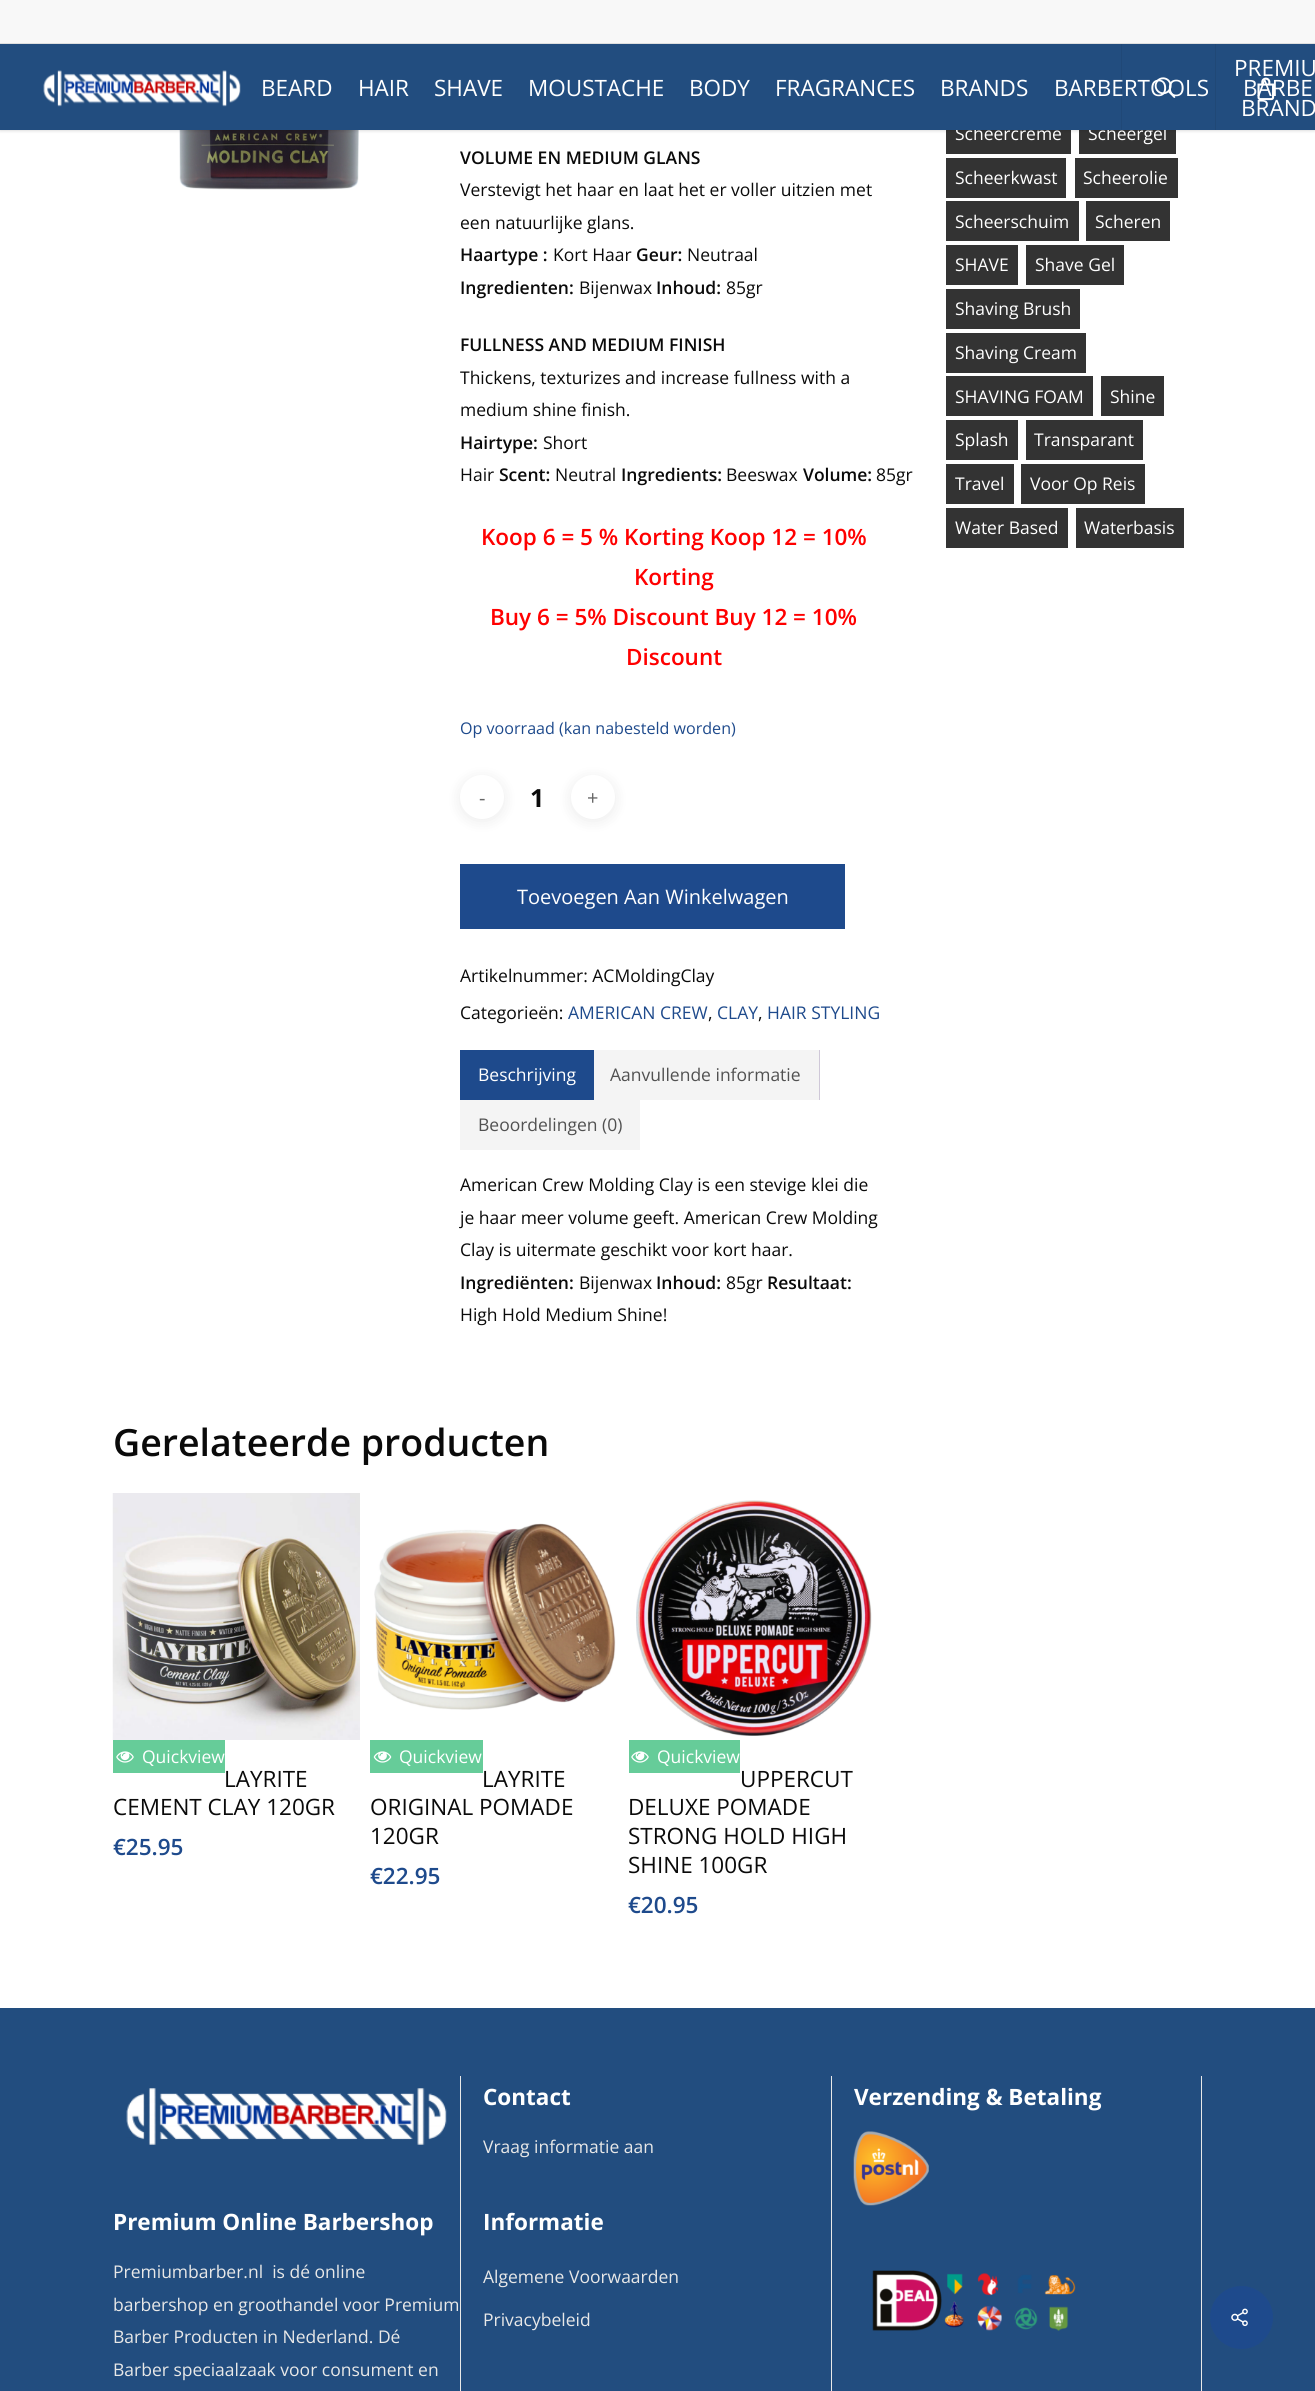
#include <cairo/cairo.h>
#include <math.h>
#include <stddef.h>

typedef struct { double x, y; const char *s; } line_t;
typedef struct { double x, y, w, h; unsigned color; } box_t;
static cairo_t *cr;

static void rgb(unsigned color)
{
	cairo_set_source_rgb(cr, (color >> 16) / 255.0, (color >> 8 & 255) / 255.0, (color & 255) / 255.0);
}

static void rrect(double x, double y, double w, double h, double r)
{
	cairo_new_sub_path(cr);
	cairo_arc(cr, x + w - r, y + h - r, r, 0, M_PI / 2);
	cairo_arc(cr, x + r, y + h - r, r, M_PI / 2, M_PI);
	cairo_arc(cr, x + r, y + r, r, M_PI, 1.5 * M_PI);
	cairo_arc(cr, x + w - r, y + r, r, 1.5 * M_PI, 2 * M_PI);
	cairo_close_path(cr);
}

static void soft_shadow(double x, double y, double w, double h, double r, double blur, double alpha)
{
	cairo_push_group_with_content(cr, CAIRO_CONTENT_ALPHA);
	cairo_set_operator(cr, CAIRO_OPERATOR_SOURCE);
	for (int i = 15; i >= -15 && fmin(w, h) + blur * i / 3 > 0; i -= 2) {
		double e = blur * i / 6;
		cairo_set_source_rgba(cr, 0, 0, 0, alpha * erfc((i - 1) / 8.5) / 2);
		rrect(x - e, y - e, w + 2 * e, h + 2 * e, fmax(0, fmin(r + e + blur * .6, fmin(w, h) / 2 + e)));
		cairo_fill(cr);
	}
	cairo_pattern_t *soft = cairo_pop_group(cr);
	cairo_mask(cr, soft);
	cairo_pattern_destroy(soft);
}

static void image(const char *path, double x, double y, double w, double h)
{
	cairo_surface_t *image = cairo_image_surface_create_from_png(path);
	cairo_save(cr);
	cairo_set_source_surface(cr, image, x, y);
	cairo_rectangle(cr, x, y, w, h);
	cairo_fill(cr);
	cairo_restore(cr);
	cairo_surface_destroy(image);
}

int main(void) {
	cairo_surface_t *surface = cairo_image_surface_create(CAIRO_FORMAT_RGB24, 1315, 2391);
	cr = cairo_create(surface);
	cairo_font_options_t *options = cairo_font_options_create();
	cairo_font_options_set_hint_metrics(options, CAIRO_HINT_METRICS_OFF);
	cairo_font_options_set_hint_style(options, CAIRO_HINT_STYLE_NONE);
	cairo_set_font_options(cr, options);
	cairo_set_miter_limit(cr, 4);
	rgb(0xffffff);
	cairo_paint(cr);
	image("img/4.png", 179, 130, 180, 60);
	rgb(0x333333);
	cairo_rectangle(cr, 946, 130, 125, 24);
	cairo_fill(cr);
	cairo_rectangle(cr, 1079, 130, 97, 24);
	cairo_fill(cr);
	rgb(0x000000);
	soft_shadow(0, 0, 1315, 130, 0, 2, 0.22);
	rgb(0xf8f8f8);
	cairo_rectangle(cr, 0, 0, 1315, 43);
	cairo_fill(cr);
	rgb(0xdfdfdf);
	cairo_rectangle(cr, 0, 43, 1315, 1);
	cairo_fill(cr);
	rgb(0x000000);
	soft_shadow(460, 778, 44, 43, 21.5, 7.5, 0.08);
	rgb(0xffffff);
	cairo_arc(cr, 482, 797, 22, 0, 2 * M_PI);
	cairo_fill(cr);
	rgb(0x000000);
	soft_shadow(571, 778, 44, 43, 21.5, 7.5, 0.08);
	rgb(0xffffff);
	cairo_arc(cr, 593, 797, 22, 0, 2 * M_PI);
	cairo_fill(cr);
	{
		static const box_t items[] = {
			{460, 864, 385, 65, 0x1e4a8c},
			{460, 1050, 134, 50, 0x1e4a8c},
			{594, 1050, 225, 50, 0xf4f4f4},
			{819, 1050, 1, 50, 0xcfc8d8},
			{460, 1100, 180, 50, 0xf4f4f4},
		};
		for (size_t i = 0; i < sizeof items / sizeof *items; i++) {
			rgb(items[i].color);
			cairo_rectangle(cr, items[i].x, items[i].y, items[i].w, items[i].h);
			cairo_fill(cr);
		}
	}
	image("img/5.png", 112, 1493, 248, 247);
	rgb(0x66cc99);
	cairo_rectangle(cr, 113, 1740, 112, 33);
	cairo_fill(cr);
	image("img/6.png", 116, 1751, 18, 12);
	image("img/7.png", 374, 1523, 242, 187);
	cairo_rectangle(cr, 370, 1740, 113, 33);
	cairo_fill(cr);
	image("img/8.png", 373, 1751, 19, 12);
	image("img/9.png", 636, 1500, 236, 236);
	cairo_rectangle(cr, 629, 1740, 111, 33);
	cairo_fill(cr);
	image("img/6.png", 631, 1751, 18, 12);
	{
		static const box_t items[] = {
			{946, 158, 120, 40, 0x333333},
			{1075, 158, 103, 40, 0x333333},
			{946, 201, 133, 40, 0x333333},
			{1086, 201, 84, 40, 0x333333},
			{946, 245, 72, 40, 0x333333},
			{1026, 245, 98, 40, 0x333333},
			{946, 289, 134, 40, 0x333333},
			{946, 333, 140, 40, 0x333333},
			{946, 376, 147, 40, 0x333333},
			{1101, 376, 63, 40, 0x333333},
			{946, 420, 72, 40, 0x333333},
			{1026, 420, 117, 40, 0x333333},
			{946, 464, 68, 40, 0x333333},
			{1021, 464, 124, 40, 0x333333},
			{946, 508, 122, 40, 0x333333},
			{1076, 508, 108, 40, 0x333333},
			{0, 2008, 1315, 383, 0x224d7f},
			{460, 2076, 1, 315, 0xe8e8e8},
		};
		for (size_t i = 0; i < sizeof items / sizeof *items; i++) {
			rgb(items[i].color);
			cairo_rectangle(cr, items[i].x, items[i].y, items[i].w, items[i].h);
			cairo_fill(cr);
		}
	}
	image("img/10.png", 126, 2088, 321, 57);
	cairo_rectangle(cr, 831, 2076, 1, 315);
	cairo_fill(cr);
	cairo_rectangle(cr, 1201, 2076, 1, 315);
	cairo_fill(cr);
	image("img/11.png", 853, 2131, 76, 75);
	image("img/12.png", 872, 2270, 204, 61);
	rgb(0x1e4a8c);
	cairo_arc(cr, 1241.5, 2317.5, 31.5, 0, 2 * M_PI);
	cairo_fill(cr);
	image("img/13.png", 1231, 2308, 17, 19);
	cairo_select_font_face(cr, "Open Sans SemiBold", CAIRO_FONT_SLANT_NORMAL, CAIRO_FONT_WEIGHT_NORMAL);
	cairo_set_font_size(cr, 17.5);
	rgb(0x0a0a0a);
	cairo_move_to(cr, 460, 164);
	cairo_show_text(cr, "VOLUME EN MEDIUM GLANS");
	cairo_select_font_face(cr, "Open Sans", CAIRO_FONT_SLANT_NORMAL, CAIRO_FONT_WEIGHT_NORMAL);
	cairo_move_to(cr, 460, 196);
	cairo_show_text(cr, "Verstevigt het haar en laat het er voller uitzien met");
	cairo_move_to(cr, 460, 229);
	cairo_show_text(cr, "een natuurlijke glans.");
	cairo_select_font_face(cr, "Open Sans SemiBold", CAIRO_FONT_SLANT_NORMAL, CAIRO_FONT_WEIGHT_NORMAL);
	cairo_move_to(cr, 460, 261);
	cairo_show_text(cr, "Haartype :");
	cairo_select_font_face(cr, "Open Sans", CAIRO_FONT_SLANT_NORMAL, CAIRO_FONT_WEIGHT_NORMAL);
	cairo_move_to(cr, 553, 261);
	cairo_show_text(cr, "Kort Haar");
	cairo_select_font_face(cr, "Open Sans SemiBold", CAIRO_FONT_SLANT_NORMAL, CAIRO_FONT_WEIGHT_NORMAL);
	cairo_move_to(cr, 636, 261);
	cairo_show_text(cr, "Geur:");
	cairo_select_font_face(cr, "Open Sans", CAIRO_FONT_SLANT_NORMAL, CAIRO_FONT_WEIGHT_NORMAL);
	cairo_move_to(cr, 687, 261);
	cairo_show_text(cr, "Neutraal");
	cairo_select_font_face(cr, "Open Sans SemiBold", CAIRO_FONT_SLANT_NORMAL, CAIRO_FONT_WEIGHT_NORMAL);
	cairo_move_to(cr, 460, 294);
	cairo_show_text(cr, "Ingredienten:");
	cairo_select_font_face(cr, "Open Sans", CAIRO_FONT_SLANT_NORMAL, CAIRO_FONT_WEIGHT_NORMAL);
	cairo_move_to(cr, 579, 294);
	cairo_show_text(cr, "Bijenwax");
	cairo_select_font_face(cr, "Open Sans SemiBold", CAIRO_FONT_SLANT_NORMAL, CAIRO_FONT_WEIGHT_NORMAL);
	cairo_move_to(cr, 656, 294);
	cairo_show_text(cr, "Inhoud:");
	cairo_select_font_face(cr, "Open Sans", CAIRO_FONT_SLANT_NORMAL, CAIRO_FONT_WEIGHT_NORMAL);
	cairo_move_to(cr, 726, 294);
	cairo_show_text(cr, "85gr");
	cairo_select_font_face(cr, "Open Sans SemiBold", CAIRO_FONT_SLANT_NORMAL, CAIRO_FONT_WEIGHT_NORMAL);
	cairo_move_to(cr, 460, 351);
	cairo_show_text(cr, "FULLNESS AND MEDIUM FINISH");
	cairo_select_font_face(cr, "Open Sans", CAIRO_FONT_SLANT_NORMAL, CAIRO_FONT_WEIGHT_NORMAL);
	cairo_move_to(cr, 460, 384);
	cairo_show_text(cr, "Thickens, texturizes and increase fullness with a");
	cairo_move_to(cr, 460, 416);
	cairo_show_text(cr, "medium shine finish.");
	cairo_select_font_face(cr, "Open Sans SemiBold", CAIRO_FONT_SLANT_NORMAL, CAIRO_FONT_WEIGHT_NORMAL);
	cairo_move_to(cr, 460, 449);
	cairo_show_text(cr, "Hairtype:");
	cairo_select_font_face(cr, "Open Sans", CAIRO_FONT_SLANT_NORMAL, CAIRO_FONT_WEIGHT_NORMAL);
	cairo_move_to(cr, 543, 449);
	cairo_show_text(cr, "Short");
	cairo_move_to(cr, 460, 481);
	cairo_show_text(cr, "Hair");
	cairo_select_font_face(cr, "Open Sans SemiBold", CAIRO_FONT_SLANT_NORMAL, CAIRO_FONT_WEIGHT_NORMAL);
	cairo_move_to(cr, 499, 481);
	cairo_show_text(cr, "Scent:");
	cairo_select_font_face(cr, "Open Sans", CAIRO_FONT_SLANT_NORMAL, CAIRO_FONT_WEIGHT_NORMAL);
	cairo_move_to(cr, 555, 481);
	cairo_show_text(cr, "Neutral");
	cairo_select_font_face(cr, "Open Sans SemiBold", CAIRO_FONT_SLANT_NORMAL, CAIRO_FONT_WEIGHT_NORMAL);
	cairo_move_to(cr, 621, 481);
	cairo_show_text(cr, "Ingredients:");
	cairo_select_font_face(cr, "Open Sans", CAIRO_FONT_SLANT_NORMAL, CAIRO_FONT_WEIGHT_NORMAL);
	cairo_move_to(cr, 726, 481);
	cairo_show_text(cr, "Beeswax");
	cairo_select_font_face(cr, "Open Sans SemiBold", CAIRO_FONT_SLANT_NORMAL, CAIRO_FONT_WEIGHT_NORMAL);
	cairo_move_to(cr, 803, 481);
	cairo_show_text(cr, "Volume:");
	cairo_select_font_face(cr, "Open Sans", CAIRO_FONT_SLANT_NORMAL, CAIRO_FONT_WEIGHT_NORMAL);
	cairo_move_to(cr, 876, 481);
	cairo_show_text(cr, "85gr");
	cairo_select_font_face(cr, "Open Sans SemiBold", CAIRO_FONT_SLANT_NORMAL, CAIRO_FONT_WEIGHT_NORMAL);
	cairo_set_font_size(cr, 22.5);
	rgb(0xff0000);
	{
		static const line_t items[] = {
			{481, 545, "Koop 6 = 5 % Korting Koop 12 = 10%"},
			{634, 585, "Korting"},
			{490, 625, "Buy 6 = 5% Discount Buy 12 = 10%"},
			{626, 665, "Discount"},
		};
		for (size_t i = 0; i < sizeof items / sizeof *items; i++) {
			cairo_move_to(cr, items[i].x, items[i].y);
			cairo_show_text(cr, items[i].s);
		}
	}
	cairo_select_font_face(cr, "Open Sans", CAIRO_FONT_SLANT_NORMAL, CAIRO_FONT_WEIGHT_NORMAL);
	cairo_set_font_size(cr, 16.1);
	rgb(0x1e4a8c);
	cairo_move_to(cr, 460, 734);
	cairo_show_text(cr, "Op voorraad (kan nabesteld worden)");
	cairo_set_font_size(cr, 20);
	rgb(0x666666);
	cairo_move_to(cr, 479, 805);
	cairo_show_text(cr, "-");
	cairo_select_font_face(cr, "Open Sans", CAIRO_FONT_SLANT_NORMAL, CAIRO_FONT_WEIGHT_BOLD);
	cairo_set_font_size(cr, 25);
	rgb(0x0a0a0a);
	cairo_move_to(cr, 530, 807);
	cairo_show_text(cr, "1");
	cairo_select_font_face(cr, "Open Sans", CAIRO_FONT_SLANT_NORMAL, CAIRO_FONT_WEIGHT_NORMAL);
	cairo_set_font_size(cr, 20);
	rgb(0x666666);
	cairo_move_to(cr, 587, 805);
	cairo_show_text(cr, "+");
	rgb(0xffffff);
	cairo_move_to(cr, 517, 904);
	cairo_show_text(cr, "Toevoegen Aan Winkelwagen");
	cairo_set_font_size(cr, 17.5);
	rgb(0x0a0a0a);
	cairo_move_to(cr, 460, 982);
	cairo_show_text(cr, "Artikelnummer: ACMoldingClay");
	cairo_move_to(cr, 460, 1019);
	cairo_show_text(cr, "Categorieën:");
	rgb(0x1e4a8c);
	cairo_move_to(cr, 568, 1019);
	cairo_show_text(cr, "AMERICAN CREW");
	rgb(0x0a0a0a);
	cairo_move_to(cr, 708, 1019);
	cairo_show_text(cr, ",");
	rgb(0x1e4a8c);
	cairo_move_to(cr, 717, 1019);
	cairo_show_text(cr, "CLAY");
	rgb(0x0a0a0a);
	cairo_move_to(cr, 758, 1019);
	cairo_show_text(cr, ",");
	rgb(0x1e4a8c);
	cairo_move_to(cr, 767, 1019);
	cairo_show_text(cr, "HAIR STYLING");
	rgb(0xffffff);
	cairo_move_to(cr, 478, 1081);
	cairo_show_text(cr, "Beschrijving");
	rgb(0x515151);
	cairo_move_to(cr, 610, 1081);
	cairo_show_text(cr, "Aanvullende informatie");
	cairo_move_to(cr, 478, 1131);
	cairo_show_text(cr, "Beoordelingen (0)");
	rgb(0x0a0a0a);
	{
		static const line_t items[] = {
			{460, 1191, "American Crew Molding Clay is een stevige klei die"},
			{460, 1224, "je haar meer volume geeft. American Crew Molding"},
			{460, 1256, "Clay is uitermate geschikt voor kort haar."},
		};
		for (size_t i = 0; i < sizeof items / sizeof *items; i++) {
			cairo_move_to(cr, items[i].x, items[i].y);
			cairo_show_text(cr, items[i].s);
		}
	}
	cairo_select_font_face(cr, "Open Sans SemiBold", CAIRO_FONT_SLANT_NORMAL, CAIRO_FONT_WEIGHT_NORMAL);
	cairo_move_to(cr, 460, 1289);
	cairo_show_text(cr, "Ingrediënten:");
	cairo_select_font_face(cr, "Open Sans", CAIRO_FONT_SLANT_NORMAL, CAIRO_FONT_WEIGHT_NORMAL);
	cairo_move_to(cr, 579, 1289);
	cairo_show_text(cr, "Bijenwax");
	cairo_select_font_face(cr, "Open Sans SemiBold", CAIRO_FONT_SLANT_NORMAL, CAIRO_FONT_WEIGHT_NORMAL);
	cairo_move_to(cr, 656, 1289);
	cairo_show_text(cr, "Inhoud:");
	cairo_select_font_face(cr, "Open Sans", CAIRO_FONT_SLANT_NORMAL, CAIRO_FONT_WEIGHT_NORMAL);
	cairo_move_to(cr, 726, 1289);
	cairo_show_text(cr, "85gr");
	cairo_select_font_face(cr, "Open Sans SemiBold", CAIRO_FONT_SLANT_NORMAL, CAIRO_FONT_WEIGHT_NORMAL);
	cairo_move_to(cr, 767, 1289);
	cairo_show_text(cr, "Resultaat:");
	cairo_select_font_face(cr, "Open Sans", CAIRO_FONT_SLANT_NORMAL, CAIRO_FONT_WEIGHT_NORMAL);
	cairo_move_to(cr, 460, 1321);
	cairo_show_text(cr, "High Hold Medium Shine!");
	cairo_select_font_face(cr, "Open Sans SemiBold", CAIRO_FONT_SLANT_NORMAL, CAIRO_FONT_WEIGHT_NORMAL);
	cairo_set_font_size(cr, 37.5);
	cairo_move_to(cr, 113, 1456);
	cairo_show_text(cr, "Gerelateerde producten");
	cairo_select_font_face(cr, "Open Sans", CAIRO_FONT_SLANT_NORMAL, CAIRO_FONT_WEIGHT_NORMAL);
	cairo_set_font_size(cr, 17.5);
	rgb(0xffffff);
	cairo_move_to(cr, 142, 1763);
	cairo_show_text(cr, "Quickview");
	cairo_set_font_size(cr, 22.5);
	rgb(0x0a0a0a);
	cairo_move_to(cr, 224, 1787);
	cairo_show_text(cr, "LAYRITE");
	cairo_move_to(cr, 113, 1815);
	cairo_show_text(cr, "CEMENT CLAY 120GR");
	cairo_select_font_face(cr, "Open Sans SemiBold", CAIRO_FONT_SLANT_NORMAL, CAIRO_FONT_WEIGHT_NORMAL);
	rgb(0x1e4a8c);
	cairo_move_to(cr, 113, 1855);
	cairo_show_text(cr, "€25.95");
	cairo_select_font_face(cr, "Open Sans", CAIRO_FONT_SLANT_NORMAL, CAIRO_FONT_WEIGHT_NORMAL);
	cairo_set_font_size(cr, 17.5);
	rgb(0xffffff);
	cairo_move_to(cr, 399, 1763);
	cairo_show_text(cr, "Quickview");
	cairo_set_font_size(cr, 22.5);
	rgb(0x0a0a0a);
	{
		static const line_t items[] = {
			{482, 1787, "LAYRITE"},
			{370, 1815, "ORIGINAL POMADE"},
			{370, 1844, "120GR"},
		};
		for (size_t i = 0; i < sizeof items / sizeof *items; i++) {
			cairo_move_to(cr, items[i].x, items[i].y);
			cairo_show_text(cr, items[i].s);
		}
	}
	cairo_select_font_face(cr, "Open Sans SemiBold", CAIRO_FONT_SLANT_NORMAL, CAIRO_FONT_WEIGHT_NORMAL);
	rgb(0x1e4a8c);
	cairo_move_to(cr, 370, 1884);
	cairo_show_text(cr, "€22.95");
	cairo_select_font_face(cr, "Open Sans", CAIRO_FONT_SLANT_NORMAL, CAIRO_FONT_WEIGHT_NORMAL);
	cairo_set_font_size(cr, 17.5);
	rgb(0xffffff);
	cairo_move_to(cr, 657, 1763);
	cairo_show_text(cr, "Quickview");
	cairo_set_font_size(cr, 22.5);
	rgb(0x0a0a0a);
	{
		static const line_t items[] = {
			{740, 1787, "UPPERCUT"},
			{628, 1815, "DELUXE POMADE"},
			{628, 1844, "STRONG HOLD HIGH"},
			{628, 1873, "SHINE 100GR"},
		};
		for (size_t i = 0; i < sizeof items / sizeof *items; i++) {
			cairo_move_to(cr, items[i].x, items[i].y);
			cairo_show_text(cr, items[i].s);
		}
	}
	cairo_select_font_face(cr, "Open Sans SemiBold", CAIRO_FONT_SLANT_NORMAL, CAIRO_FONT_WEIGHT_NORMAL);
	rgb(0x1e4a8c);
	cairo_move_to(cr, 628, 1913);
	cairo_show_text(cr, "€20.95");
	cairo_select_font_face(cr, "Open Sans", CAIRO_FONT_SLANT_NORMAL, CAIRO_FONT_WEIGHT_NORMAL);
	cairo_set_font_size(cr, 17.5);
	rgb(0xffffff);
	cairo_move_to(cr, 955, 140);
	cairo_show_text(cr, "Scheercreme");
	cairo_move_to(cr, 1088, 140);
	cairo_show_text(cr, "Scheergel");
	rgb(0x224d7f);
	cairo_rectangle(cr, 0, 44, 1315, 86);
	cairo_fill(cr);
	image("img/1.png", 43, 70, 198, 37);
	cairo_set_font_size(cr, 22.5);
	rgb(0xffffff);
	cairo_move_to(cr, 1241, 116);
	cairo_show_text(cr, "BRAND");
	cairo_move_to(cr, 1243, 96);
	cairo_show_text(cr, "BARBE");
	image("img/3.png", 1257, 77, 18, 24);
	rgb(0x204876);
	cairo_rectangle(cr, 1215, 44, 1, 86);
	cairo_fill(cr);
	rgb(0xffffff);
	cairo_move_to(cr, 1054, 96);
	cairo_show_text(cr, "BARBERTOOLS");
	image("img/2.png", 1154, 77, 22, 21);
	cairo_set_source_rgba(cr, 0, 0, 0, 0.07);
	cairo_rectangle(cr, 1121, 44, 1, 86);
	cairo_fill(cr);
	rgb(0xffffff);
	{
		static const line_t items[] = {
			{1234, 76, "PREMIU"},
			{940, 96, "BRANDS"},
			{775, 96, "FRAGRANCES"},
			{689, 96, "BODY"},
			{528, 96, "MOUSTACHE"},
			{434, 96, "SHAVE"},
			{358, 96, "HAIR"},
			{261, 96, "BEARD"},
		};
		for (size_t i = 0; i < sizeof items / sizeof *items; i++) {
			cairo_move_to(cr, items[i].x, items[i].y);
			cairo_show_text(cr, items[i].s);
		}
	}
	cairo_set_font_size(cr, 17.5);
	{
		static const line_t items[] = {
			{955, 184, "Scheerkwast"},
			{1083, 184, "Scheerolie"},
			{955, 228, "Scheerschuim"},
			{1095, 228, "Scheren"},
			{955, 271, "SHAVE"},
			{1035, 271, "Shave Gel"},
			{955, 315, "Shaving Brush"},
			{955, 359, "Shaving Cream"},
			{955, 403, "SHAVING FOAM"},
			{1110, 403, "Shine"},
			{955, 446, "Splash"},
			{1034, 446, "Transparant"},
			{955, 490, "Travel"},
			{1030, 490, "Voor Op Reis"},
			{955, 534, "Water Based"},
			{1084, 534, "Waterbasis"},
		};
		for (size_t i = 0; i < sizeof items / sizeof *items; i++) {
			cairo_move_to(cr, items[i].x, items[i].y);
			cairo_show_text(cr, items[i].s);
		}
	}
	cairo_select_font_face(cr, "Open Sans", CAIRO_FONT_SLANT_NORMAL, CAIRO_FONT_WEIGHT_BOLD);
	cairo_set_font_size(cr, 22.5);
	cairo_move_to(cr, 113, 2230);
	cairo_show_text(cr, "Premium Online Barbershop");
	cairo_select_font_face(cr, "Open Sans", CAIRO_FONT_SLANT_NORMAL, CAIRO_FONT_WEIGHT_NORMAL);
	cairo_set_font_size(cr, 17.5);
	rgb(0xe8e8e8);
	{
		static const line_t items[] = {
			{113, 2278, "Premiumbarber.nl  is dé online"},
			{113, 2311, "barbershop en groothandel voor Premium"},
			{113, 2343, "Barber Producten in Nederland. Dé"},
			{113, 2376, "Barber speciaalzaak voor consument en"},
		};
		for (size_t i = 0; i < sizeof items / sizeof *items; i++) {
			cairo_move_to(cr, items[i].x, items[i].y);
			cairo_show_text(cr, items[i].s);
		}
	}
	cairo_select_font_face(cr, "Open Sans", CAIRO_FONT_SLANT_NORMAL, CAIRO_FONT_WEIGHT_BOLD);
	cairo_set_font_size(cr, 22.5);
	rgb(0xffffff);
	cairo_move_to(cr, 483, 2105);
	cairo_show_text(cr, "Contact");
	cairo_select_font_face(cr, "Open Sans", CAIRO_FONT_SLANT_NORMAL, CAIRO_FONT_WEIGHT_NORMAL);
	cairo_set_font_size(cr, 17.5);
	rgb(0xe8e8e8);
	cairo_move_to(cr, 483, 2153);
	cairo_show_text(cr, "Vraag informatie aan");
	cairo_select_font_face(cr, "Open Sans", CAIRO_FONT_SLANT_NORMAL, CAIRO_FONT_WEIGHT_BOLD);
	cairo_set_font_size(cr, 22.5);
	rgb(0xffffff);
	cairo_move_to(cr, 483, 2230);
	cairo_show_text(cr, "Informatie");
	cairo_select_font_face(cr, "Open Sans", CAIRO_FONT_SLANT_NORMAL, CAIRO_FONT_WEIGHT_NORMAL);
	cairo_set_font_size(cr, 17.5);
	rgb(0xe8e8e8);
	cairo_move_to(cr, 483, 2283);
	cairo_show_text(cr, "Algemene Voorwaarden");
	cairo_move_to(cr, 483, 2326);
	cairo_show_text(cr, "Privacybeleid");
	cairo_select_font_face(cr, "Open Sans", CAIRO_FONT_SLANT_NORMAL, CAIRO_FONT_WEIGHT_BOLD);
	cairo_set_font_size(cr, 22.5);
	rgb(0xffffff);
	cairo_move_to(cr, 854, 2105);
	cairo_show_text(cr, "Verzending & Betaling");
	cairo_surface_write_to_png(surface, "page.png");
	cairo_font_options_destroy(options);
	cairo_destroy(cr);
	cairo_surface_destroy(surface);
	return 0;
}
